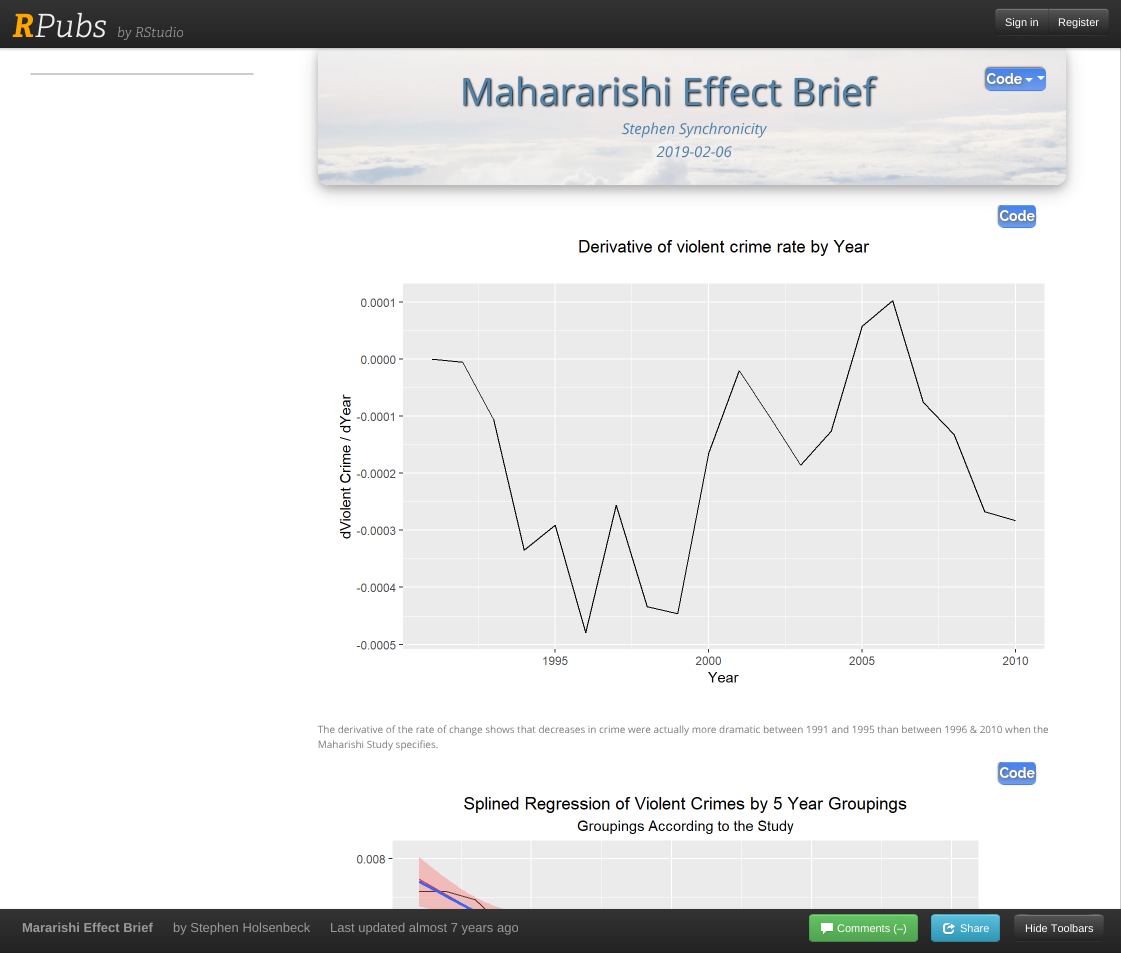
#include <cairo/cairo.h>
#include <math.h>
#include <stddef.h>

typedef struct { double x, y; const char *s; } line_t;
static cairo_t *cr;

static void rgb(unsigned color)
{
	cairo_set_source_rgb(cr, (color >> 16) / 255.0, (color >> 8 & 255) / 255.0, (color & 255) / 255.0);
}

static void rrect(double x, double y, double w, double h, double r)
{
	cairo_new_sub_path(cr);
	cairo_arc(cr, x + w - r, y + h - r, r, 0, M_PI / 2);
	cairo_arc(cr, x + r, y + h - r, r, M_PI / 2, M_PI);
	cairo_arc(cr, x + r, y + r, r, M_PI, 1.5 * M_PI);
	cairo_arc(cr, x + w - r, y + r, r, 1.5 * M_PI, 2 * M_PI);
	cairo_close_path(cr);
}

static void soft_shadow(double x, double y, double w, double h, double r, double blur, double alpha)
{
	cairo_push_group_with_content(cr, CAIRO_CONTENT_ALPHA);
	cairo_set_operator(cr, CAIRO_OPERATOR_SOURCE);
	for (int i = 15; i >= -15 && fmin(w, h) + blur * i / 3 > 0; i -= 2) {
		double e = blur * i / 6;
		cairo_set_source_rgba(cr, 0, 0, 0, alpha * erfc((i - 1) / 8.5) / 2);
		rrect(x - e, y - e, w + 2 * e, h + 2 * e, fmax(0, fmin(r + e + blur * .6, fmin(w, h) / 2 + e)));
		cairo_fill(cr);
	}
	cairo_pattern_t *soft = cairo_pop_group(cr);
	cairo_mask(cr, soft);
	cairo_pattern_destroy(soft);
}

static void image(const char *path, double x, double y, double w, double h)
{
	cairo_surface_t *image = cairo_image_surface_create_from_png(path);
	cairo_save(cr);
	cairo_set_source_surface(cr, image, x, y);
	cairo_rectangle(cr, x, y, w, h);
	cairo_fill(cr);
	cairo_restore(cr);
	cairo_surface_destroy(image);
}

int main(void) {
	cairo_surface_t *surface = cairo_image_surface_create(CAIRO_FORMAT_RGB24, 1121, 953);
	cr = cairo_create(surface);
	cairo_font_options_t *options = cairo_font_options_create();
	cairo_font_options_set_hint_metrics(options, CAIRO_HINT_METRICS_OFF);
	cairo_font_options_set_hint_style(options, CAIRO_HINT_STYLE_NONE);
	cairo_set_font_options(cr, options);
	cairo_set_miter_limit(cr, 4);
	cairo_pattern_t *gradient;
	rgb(0xffffff);
	cairo_paint(cr);
	image("img/1.png", 0, 48, 1120, 861);
	rgb(0xcccccc);
	cairo_rectangle(cr, 1120, 48, 1, 865);
	cairo_fill(cr);
	rgb(0x000000);
	soft_shadow(0, 1, 1121, 48, 0, 1.5, 0.25);
	gradient = cairo_pattern_create_linear(561, 0, 561, 48);
	cairo_pattern_add_color_stop_rgba(gradient, 0, 0.2, 0.2, 0.2, 1);
	cairo_pattern_add_color_stop_rgba(gradient, 1, 0.133, 0.133, 0.133, 1);
	cairo_set_source(cr, gradient);
	cairo_pattern_destroy(gradient);
	cairo_rectangle(cr, 0, 0, 1121, 47);
	cairo_fill(cr);
	rgb(0x1f1f1f);
	cairo_rectangle(cr, 0, 47, 1121, 1);
	cairo_fill(cr);
	rgb(0x414141);
	cairo_new_path(cr);
	cairo_move_to(cr, 999, 8);
	cairo_line_to(cr, 1049, 8);
	cairo_line_to(cr, 1049, 36);
	cairo_line_to(cr, 999, 36);
	cairo_curve_to(cr, 997, 36, 995, 34, 995, 32);
	cairo_line_to(cr, 995, 12);
	cairo_curve_to(cr, 995, 10, 997, 8, 999, 8);
	cairo_close_path(cr);
	cairo_fill(cr);
	cairo_save(cr);
	cairo_new_path(cr);
	cairo_move_to(cr, 999, 8);
	cairo_line_to(cr, 1049, 8);
	cairo_line_to(cr, 1049, 36);
	cairo_line_to(cr, 999, 36);
	cairo_curve_to(cr, 997, 36, 995, 34, 995, 32);
	cairo_line_to(cr, 995, 12);
	cairo_curve_to(cr, 995, 10, 997, 8, 999, 8);
	cairo_close_path(cr);
	cairo_clip(cr);
	gradient = cairo_pattern_create_linear(1022, 9, 1022, 35);
	cairo_pattern_add_color_stop_rgba(gradient, 0, 0.333, 0.333, 0.333, 1);
	cairo_pattern_add_color_stop_rgba(gradient, 1, 0.133, 0.133, 0.133, 1);
	cairo_set_source(cr, gradient);
	cairo_pattern_destroy(gradient);
	cairo_rectangle(cr, 995, 9, 53, 26);
	cairo_fill(cr);
	cairo_restore(cr);
	rgb(0x767676);
	cairo_new_path(cr);
	cairo_move_to(cr, 999, 10);
	cairo_line_to(cr, 1048, 10);
	cairo_line_to(cr, 1048, 9);
	cairo_line_to(cr, 999, 9);
	cairo_curve_to(cr, 997, 9, 996, 10, 996, 12);
	cairo_line_to(cr, 996, 13);
	cairo_curve_to(cr, 996, 11, 997, 10, 999, 10);
	cairo_close_path(cr);
	cairo_fill(cr);
	cairo_set_source_rgba(cr, 0, 0, 0, 0.1);
	cairo_new_path(cr);
	cairo_move_to(cr, 999, 8);
	cairo_line_to(cr, 996, 9);
	cairo_line_to(cr, 997, 10);
	cairo_curve_to(cr, 999, 8, 1042, 9, 1048, 9);
	cairo_line_to(cr, 1049, 8);
	cairo_close_path(cr);
	cairo_fill(cr);
	cairo_set_source_rgba(cr, 0, 0, 0, 0.25);
	cairo_new_path(cr);
	cairo_move_to(cr, 1049, 36);
	cairo_line_to(cr, 1048, 35);
	cairo_curve_to(cr, 1042, 35, 999, 36, 997, 34);
	cairo_line_to(cr, 996, 35);
	cairo_line_to(cr, 999, 36);
	cairo_close_path(cr);
	cairo_fill(cr);
	cairo_set_source_rgba(cr, 0, 0, 0, 0.1);
	cairo_new_path(cr);
	cairo_move_to(cr, 995, 12);
	cairo_line_to(cr, 995, 32);
	cairo_curve_to(cr, 995, 33, 995.5, 34, 996, 35);
	cairo_line_to(cr, 997, 34);
	cairo_curve_to(cr, 996, 34, 996, 33, 996, 32);
	cairo_line_to(cr, 996, 12);
	cairo_curve_to(cr, 996, 11, 996, 10, 997, 10);
	cairo_line_to(cr, 996, 9);
	cairo_curve_to(cr, 995.5, 10, 995, 11, 995, 12);
	cairo_close_path(cr);
	cairo_fill(cr);
	rgb(0x414141);
	cairo_new_path(cr);
	cairo_move_to(cr, 1048, 8);
	cairo_line_to(cr, 1105, 8);
	cairo_curve_to(cr, 1107, 8, 1109, 10, 1109, 12);
	cairo_line_to(cr, 1109, 32);
	cairo_curve_to(cr, 1109, 34, 1107, 36, 1105, 36);
	cairo_line_to(cr, 1048, 36);
	cairo_close_path(cr);
	cairo_fill(cr);
	cairo_save(cr);
	cairo_new_path(cr);
	cairo_move_to(cr, 1048, 8);
	cairo_line_to(cr, 1105, 8);
	cairo_curve_to(cr, 1107, 8, 1109, 10, 1109, 12);
	cairo_line_to(cr, 1109, 32);
	cairo_curve_to(cr, 1109, 34, 1107, 36, 1105, 36);
	cairo_line_to(cr, 1048, 36);
	cairo_close_path(cr);
	cairo_clip(cr);
	gradient = cairo_pattern_create_linear(1079, 9, 1079, 35);
	cairo_pattern_add_color_stop_rgba(gradient, 0, 0.333, 0.333, 0.333, 1);
	cairo_pattern_add_color_stop_rgba(gradient, 1, 0.133, 0.133, 0.133, 1);
	cairo_set_source(cr, gradient);
	cairo_pattern_destroy(gradient);
	cairo_rectangle(cr, 1048, 9, 61, 26);
	cairo_fill(cr);
	cairo_restore(cr);
	rgb(0x767676);
	cairo_new_path(cr);
	cairo_move_to(cr, 1049, 10);
	cairo_line_to(cr, 1105, 10);
	cairo_curve_to(cr, 1107, 10, 1108, 11, 1108, 13);
	cairo_line_to(cr, 1108, 12);
	cairo_curve_to(cr, 1108, 10, 1107, 9, 1105, 9);
	cairo_line_to(cr, 1049, 9);
	cairo_close_path(cr);
	cairo_fill(cr);
	cairo_set_source_rgba(cr, 0, 0, 0, 0.1);
	cairo_new_path(cr);
	cairo_move_to(cr, 1048, 8);
	cairo_line_to(cr, 1049, 9);
	cairo_curve_to(cr, 1056, 9, 1105, 8, 1107, 10);
	cairo_line_to(cr, 1108, 9);
	cairo_line_to(cr, 1105, 8);
	cairo_close_path(cr);
	cairo_fill(cr);
	cairo_new_path(cr);
	cairo_move_to(cr, 1109, 32);
	cairo_line_to(cr, 1109, 12);
	cairo_curve_to(cr, 1109, 11, 1108.5, 10, 1108, 9);
	cairo_line_to(cr, 1107, 10);
	cairo_curve_to(cr, 1108, 10, 1108, 11, 1108, 12);
	cairo_line_to(cr, 1108, 32);
	cairo_curve_to(cr, 1108, 33, 1108, 34, 1107, 34);
	cairo_line_to(cr, 1108, 35);
	cairo_curve_to(cr, 1108.5, 34, 1109, 33, 1109, 32);
	cairo_close_path(cr);
	cairo_fill(cr);
	cairo_set_source_rgba(cr, 0, 0, 0, 0.25);
	cairo_new_path(cr);
	cairo_move_to(cr, 1105, 36);
	cairo_line_to(cr, 1108, 35);
	cairo_line_to(cr, 1107, 34);
	cairo_curve_to(cr, 1105, 36, 1056, 35, 1049, 35);
	cairo_line_to(cr, 1048, 36);
	cairo_close_path(cr);
	cairo_fill(cr);
	cairo_set_source_rgba(cr, 0, 0, 0, 0.1);
	cairo_new_path(cr);
	cairo_move_to(cr, 1048, 8);
	cairo_line_to(cr, 1048, 36);
	cairo_line_to(cr, 1049, 35);
	cairo_line_to(cr, 1049, 9);
	cairo_close_path(cr);
	cairo_fill(cr);
	rgb(0x000000);
	soft_shadow(0, 910, 1121, 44, 0, 1.5, 0.25);
	gradient = cairo_pattern_create_linear(561, 909, 561, 953);
	cairo_pattern_add_color_stop_rgba(gradient, 0, 0.2, 0.2, 0.2, 1);
	cairo_pattern_add_color_stop_rgba(gradient, 1, 0.133, 0.133, 0.133, 1);
	cairo_set_source(cr, gradient);
	cairo_pattern_destroy(gradient);
	cairo_rectangle(cr, 0, 909, 1121, 43);
	cairo_fill(cr);
	rgb(0x1f1f1f);
	cairo_rectangle(cr, 0, 952, 1121, 1);
	cairo_fill(cr);
	rgb(0x5bb75b);
	rrect(809, 914, 109, 28, 4);
	cairo_fill(cr);
	cairo_save(cr);
	rrect(809, 914, 109, 28, 4);
	cairo_clip(cr);
	gradient = cairo_pattern_create_linear(864, 915, 864, 941);
	cairo_pattern_add_color_stop_rgba(gradient, 0, 0.384, 0.769, 0.384, 1);
	cairo_pattern_add_color_stop_rgba(gradient, 1, 0.318, 0.639, 0.318, 1);
	cairo_set_source(cr, gradient);
	cairo_pattern_destroy(gradient);
	cairo_rectangle(cr, 809, 915, 109, 26);
	cairo_fill(cr);
	cairo_restore(cr);
	rgb(0x81cf81);
	cairo_set_fill_rule(cr, CAIRO_FILL_RULE_EVEN_ODD);
	cairo_new_path(cr);
	cairo_move_to(cr, 813, 916);
	cairo_line_to(cr, 915, 916);
	cairo_curve_to(cr, 916, 916, 917, 918, 917, 919);
	cairo_line_to(cr, 917, 918);
	cairo_curve_to(cr, 917, 916, 916, 915, 914, 915);
	cairo_line_to(cr, 813, 915);
	cairo_curve_to(cr, 811, 915, 810, 916, 810, 918);
	cairo_curve_to(cr, 810, 917, 811, 916, 813, 916);
	cairo_close_path(cr);
	cairo_move_to(cr, 917, 936);
	cairo_line_to(cr, 917, 939);
	cairo_close_path(cr);
	cairo_fill(cr);
	cairo_new_path(cr);
	cairo_move_to(cr, 916.5, 940.5);
	cairo_line_to(cr, 914.5, 941.5);
	cairo_line_to(cr, 830, 941.5);
	cairo_line_to(cr, 813, 941.5);
	cairo_line_to(cr, 810.5, 940.5);
	cairo_set_source_rgba(cr, 0, 0, 0, 0.25);
	cairo_set_line_width(cr, 1);
	cairo_stroke(cr);
	cairo_new_path(cr);
	cairo_move_to(cr, 810.5, 940.5);
	cairo_curve_to(cr, 808.5, 938.5, 809.5, 934, 809.5, 931.5);
	cairo_curve_to(cr, 809.5, 910.5, 806.5, 914.5, 830, 914.5);
	cairo_line_to(cr, 897, 914.5);
	cairo_curve_to(cr, 920.5, 914.5, 917.5, 910.5, 917.5, 931.5);
	cairo_curve_to(cr, 917.5, 934, 918.5, 938.5, 916.5, 940.5);
	cairo_set_source_rgba(cr, 0, 0, 0, 0.1);
	cairo_stroke(cr);
	image("img/2.png", 821, 923, 12, 12);
	rgb(0x49afcd);
	rrect(931, 914, 69, 28, 4);
	cairo_fill(cr);
	cairo_save(cr);
	cairo_set_fill_rule(cr, CAIRO_FILL_RULE_WINDING);
	rrect(931, 914, 69, 28, 4);
	cairo_clip(cr);
	gradient = cairo_pattern_create_linear(966, 915, 966, 941);
	cairo_pattern_add_color_stop_rgba(gradient, 0, 0.357, 0.753, 0.871, 1);
	cairo_pattern_add_color_stop_rgba(gradient, 1, 0.184, 0.588, 0.706, 1);
	cairo_set_source(cr, gradient);
	cairo_pattern_destroy(gradient);
	cairo_rectangle(cr, 931, 915, 69, 26);
	cairo_fill(cr);
	cairo_restore(cr);
	cairo_set_source_rgba(cr, 1, 1, 1, 0.2);
	cairo_set_fill_rule(cr, CAIRO_FILL_RULE_WINDING);
	cairo_new_path(cr);
	cairo_move_to(cr, 935, 916);
	cairo_line_to(cr, 996, 916);
	cairo_curve_to(cr, 998, 916, 999, 917, 999, 919);
	cairo_curve_to(cr, 999, 912, 990, 915, 986, 915);
	cairo_line_to(cr, 945, 915);
	cairo_curve_to(cr, 941, 915, 932, 912, 932, 919);
	cairo_curve_to(cr, 932, 917, 933, 916, 935, 916);
	cairo_close_path(cr);
	cairo_fill(cr);
	cairo_new_path(cr);
	cairo_move_to(cr, 998.5, 940.5);
	cairo_line_to(cr, 996.5, 941.5);
	cairo_line_to(cr, 934.5, 941.5);
	cairo_line_to(cr, 932.5, 940.5);
	cairo_set_source_rgba(cr, 0, 0, 0, 0.25);
	cairo_stroke(cr);
	cairo_new_path(cr);
	cairo_move_to(cr, 932.5, 940.5);
	cairo_curve_to(cr, 930.5, 938, 931.5, 930.5, 931.5, 928);
	cairo_curve_to(cr, 931.5, 913, 929.5, 914.5, 945, 914.5);
	cairo_line_to(cr, 986, 914.5);
	cairo_curve_to(cr, 1001.5, 914.5, 999.5, 913, 999.5, 928);
	cairo_curve_to(cr, 999.5, 930.5, 1000.5, 938, 998.5, 940.5);
	cairo_set_source_rgba(cr, 0, 0, 0, 0.1);
	cairo_stroke(cr);
	image("img/3.png", 943, 923, 12, 12);
	rgb(0x414141);
	rrect(1014, 914, 90, 28, 4);
	cairo_fill(cr);
	cairo_save(cr);
	rrect(1014, 914, 90, 28, 4);
	cairo_clip(cr);
	gradient = cairo_pattern_create_linear(1059, 915, 1059, 941);
	cairo_pattern_add_color_stop_rgba(gradient, 0, 0.333, 0.333, 0.333, 1);
	cairo_pattern_add_color_stop_rgba(gradient, 1, 0.133, 0.133, 0.133, 1);
	cairo_set_source(cr, gradient);
	cairo_pattern_destroy(gradient);
	cairo_rectangle(cr, 1014, 915, 90, 26);
	cairo_fill(cr);
	cairo_restore(cr);
	cairo_set_source_rgba(cr, 1, 1, 1, 0.2);
	cairo_new_path(cr);
	cairo_move_to(cr, 1018, 916);
	cairo_line_to(cr, 1100, 916);
	cairo_curve_to(cr, 1102, 916, 1103, 917, 1103, 919);
	cairo_curve_to(cr, 1103, 911, 1090, 915, 1086, 915);
	cairo_line_to(cr, 1032, 915);
	cairo_curve_to(cr, 1028, 915, 1015, 911, 1015, 919);
	cairo_curve_to(cr, 1015, 917, 1016, 916, 1018, 916);
	cairo_close_path(cr);
	cairo_fill(cr);
	cairo_new_path(cr);
	cairo_move_to(cr, 1102.5, 940.5);
	cairo_line_to(cr, 1100.5, 941.5);
	cairo_line_to(cr, 1017.5, 941.5);
	cairo_line_to(cr, 1015.5, 940.5);
	cairo_set_source_rgba(cr, 0, 0, 0, 0.25);
	cairo_stroke(cr);
	cairo_new_path(cr);
	cairo_move_to(cr, 1015.5, 940.5);
	cairo_curve_to(cr, 1013.5, 938.5, 1014.5, 934, 1014.5, 931.5);
	cairo_curve_to(cr, 1014.5, 912, 1011.5, 914.5, 1031.5, 914.5);
	cairo_line_to(cr, 1086.5, 914.5);
	cairo_curve_to(cr, 1106.5, 914.5, 1103.5, 912, 1103.5, 931.5);
	cairo_curve_to(cr, 1103.5, 934, 1104.5, 938.5, 1102.5, 940.5);
	cairo_set_source_rgba(cr, 0, 0, 0, 0.1);
	cairo_stroke(cr);
	cairo_select_font_face(cr, "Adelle", CAIRO_FONT_SLANT_ITALIC, CAIRO_FONT_WEIGHT_BOLD);
	cairo_set_font_size(cr, 32);
	rgb(0xffa500);
	cairo_move_to(cr, 12, 37);
	cairo_show_text(cr, "R");
	cairo_select_font_face(cr, "Adelle Light", CAIRO_FONT_SLANT_ITALIC, CAIRO_FONT_WEIGHT_NORMAL);
	rgb(0xeeeeee);
	cairo_move_to(cr, 34, 37);
	cairo_show_text(cr, "Pubs");
	cairo_set_font_size(cr, 13.5);
	rgb(0x999999);
	cairo_move_to(cr, 117, 37);
	cairo_show_text(cr, "by RStudio");
	cairo_select_font_face(cr, "Liberation Sans", CAIRO_FONT_SLANT_NORMAL, CAIRO_FONT_WEIGHT_NORMAL);
	cairo_set_font_size(cr, 11);
	rgb(0xffffff);
	cairo_move_to(cr, 1005, 26);
	cairo_show_text(cr, "Sign in");
	cairo_move_to(cr, 1058, 26);
	cairo_show_text(cr, "Register");
	cairo_select_font_face(cr, "Liberation Sans", CAIRO_FONT_SLANT_NORMAL, CAIRO_FONT_WEIGHT_BOLD);
	cairo_set_font_size(cr, 13);
	rgb(0x999999);
	cairo_move_to(cr, 22, 932);
	cairo_show_text(cr, "Mararishi Effect Brief");
	cairo_select_font_face(cr, "Liberation Sans", CAIRO_FONT_SLANT_NORMAL, CAIRO_FONT_WEIGHT_NORMAL);
	cairo_move_to(cr, 173, 932);
	cairo_show_text(cr, "by Stephen Holsenbeck");
	cairo_move_to(cr, 330, 932);
	cairo_show_text(cr, "Last updated almost 7 years ago");
	cairo_set_font_size(cr, 11);
	rgb(0xffffff);
	{
		static const line_t items[] = {
			{837, 932, "Comments (–)"},
			{960, 932, "Share"},
			{1025, 932, "Hide Toolbars"},
		};
		for (size_t i = 0; i < sizeof items / sizeof *items; i++) {
			cairo_move_to(cr, items[i].x, items[i].y);
			cairo_show_text(cr, items[i].s);
		}
	}
	cairo_surface_write_to_png(surface, "page.png");
	cairo_font_options_destroy(options);
	cairo_destroy(cr);
	cairo_surface_destroy(surface);
	return 0;
}
